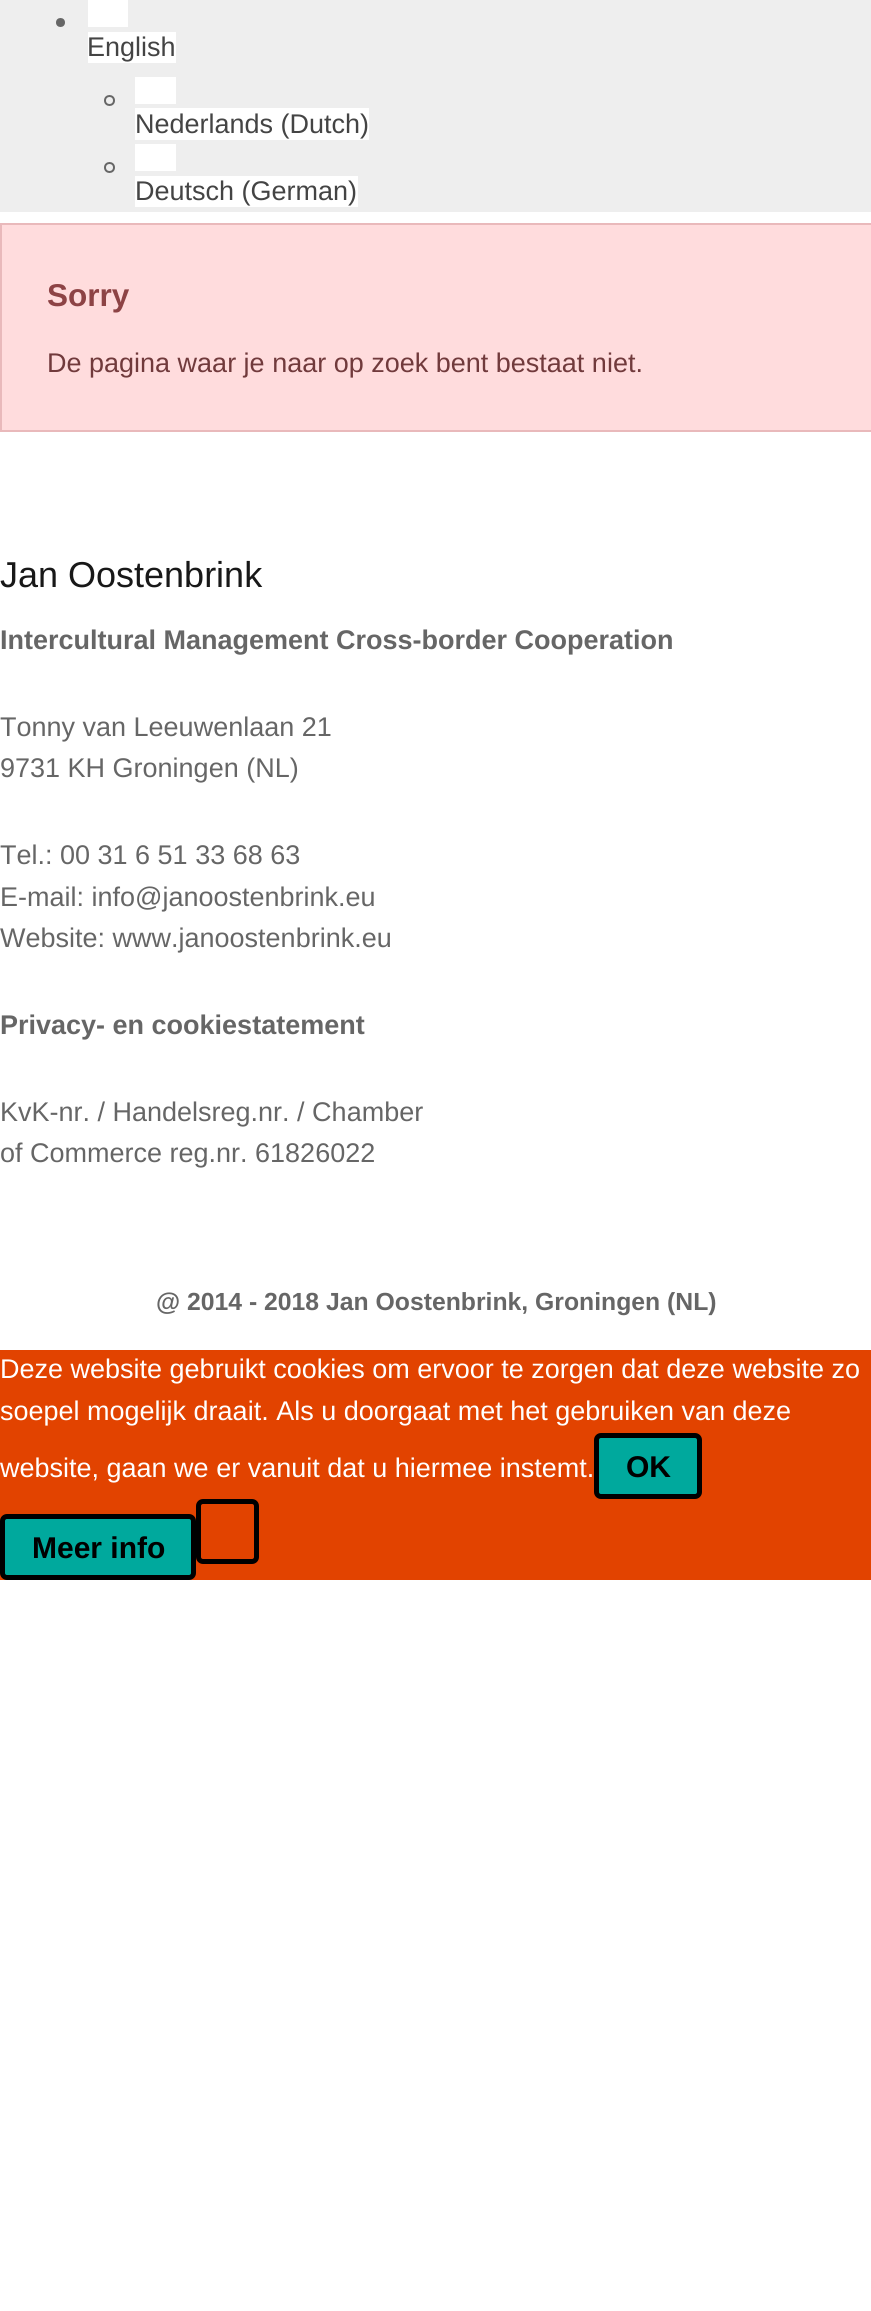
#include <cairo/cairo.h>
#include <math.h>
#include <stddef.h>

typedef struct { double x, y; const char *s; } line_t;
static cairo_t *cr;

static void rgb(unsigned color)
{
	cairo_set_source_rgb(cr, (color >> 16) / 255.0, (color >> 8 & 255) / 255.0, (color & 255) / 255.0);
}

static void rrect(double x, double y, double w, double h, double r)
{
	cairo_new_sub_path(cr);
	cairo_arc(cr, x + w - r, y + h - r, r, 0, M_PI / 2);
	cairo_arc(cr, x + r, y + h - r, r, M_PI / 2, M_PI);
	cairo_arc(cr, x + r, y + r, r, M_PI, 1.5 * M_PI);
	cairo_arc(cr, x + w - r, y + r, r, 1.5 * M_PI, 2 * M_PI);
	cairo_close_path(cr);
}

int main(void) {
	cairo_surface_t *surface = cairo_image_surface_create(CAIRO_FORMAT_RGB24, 871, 2311);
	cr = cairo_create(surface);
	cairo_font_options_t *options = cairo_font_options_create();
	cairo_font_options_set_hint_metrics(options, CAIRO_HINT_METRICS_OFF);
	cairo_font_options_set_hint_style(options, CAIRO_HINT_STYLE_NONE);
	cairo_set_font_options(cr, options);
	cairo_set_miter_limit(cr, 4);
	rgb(0xffffff);
	cairo_paint(cr);
	rgb(0xeeeeee);
	cairo_rectangle(cr, 0, 0, 871, 212);
	cairo_fill(cr);
	rgb(0x666666);
	cairo_arc(cr, 60.5, 22.5, 4.5, 0, 2 * M_PI);
	cairo_fill(cr);
	rgb(0xffffff);
	cairo_rectangle(cr, 88, 0, 40, 27);
	cairo_fill(cr);
	cairo_rectangle(cr, 88, 32, 88, 31);
	cairo_fill(cr);
	cairo_arc(cr, 109.5, 100.5, 4.5, 0, 2 * M_PI);
	rgb(0x666666);
	cairo_stroke(cr);
	rgb(0xffffff);
	cairo_rectangle(cr, 135, 77, 41, 27);
	cairo_fill(cr);
	cairo_rectangle(cr, 135, 108, 234, 32);
	cairo_fill(cr);
	cairo_arc(cr, 109.5, 167.5, 4.5, 0, 2 * M_PI);
	rgb(0x666666);
	cairo_stroke(cr);
	rgb(0xffffff);
	cairo_rectangle(cr, 135, 144, 41, 27);
	cairo_fill(cr);
	cairo_rectangle(cr, 135, 176, 223, 31);
	cairo_fill(cr);
	rgb(0xffdcdd);
	cairo_rectangle(cr, 1, 224, 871, 207);
	cairo_fill_preserve(cr);
	rgb(0xe9b9bb);
	cairo_stroke(cr);
	rgb(0xe24300);
	cairo_rectangle(cr, 0, 1350, 871, 230);
	cairo_fill(cr);
	rgb(0x00a99d);
	rrect(596.5, 1435.5, 103, 61, 4.5);
	cairo_fill_preserve(cr);
	rgb(0x000000);
	cairo_set_line_width(cr, 5);
	cairo_stroke(cr);
	rgb(0x00a99d);
	rrect(2.5, 1516.5, 191, 61, 4.5);
	cairo_fill_preserve(cr);
	rgb(0x000000);
	cairo_stroke(cr);
	rrect(198.5, 1501.5, 58, 60, 4.5);
	cairo_stroke(cr);
	cairo_select_font_face(cr, "Liberation Sans", CAIRO_FONT_SLANT_NORMAL, CAIRO_FONT_WEIGHT_NORMAL);
	cairo_set_font_size(cr, 27);
	rgb(0x444444);
	{
		static const line_t items[] = {
			{87, 56, "English"},
			{135, 133, "Nederlands (Dutch)"},
			{135, 200, "Deutsch (German)"},
		};
		for (size_t i = 0; i < sizeof items / sizeof *items; i++) {
			cairo_move_to(cr, items[i].x, items[i].y);
			cairo_show_text(cr, items[i].s);
		}
	}
	cairo_select_font_face(cr, "Liberation Sans", CAIRO_FONT_SLANT_NORMAL, CAIRO_FONT_WEIGHT_BOLD);
	cairo_set_font_size(cr, 31.5);
	rgb(0x8d4345);
	cairo_move_to(cr, 47, 306);
	cairo_show_text(cr, "Sorry");
	cairo_select_font_face(cr, "Liberation Sans", CAIRO_FONT_SLANT_NORMAL, CAIRO_FONT_WEIGHT_NORMAL);
	cairo_set_font_size(cr, 27);
	rgb(0x713a3c);
	cairo_move_to(cr, 47, 372);
	cairo_show_text(cr, "De pagina waar je naar op zoek bent bestaat niet.");
	cairo_set_font_size(cr, 36);
	rgb(0x181818);
	cairo_move_to(cr, 0, 587);
	cairo_show_text(cr, "Jan Oostenbrink");
	cairo_select_font_face(cr, "Liberation Sans", CAIRO_FONT_SLANT_NORMAL, CAIRO_FONT_WEIGHT_BOLD);
	cairo_set_font_size(cr, 27);
	rgb(0x666666);
	cairo_move_to(cr, 0, 649);
	cairo_show_text(cr, "Intercultural Management Cross-border Cooperation");
	cairo_select_font_face(cr, "Liberation Sans", CAIRO_FONT_SLANT_NORMAL, CAIRO_FONT_WEIGHT_NORMAL);
	{
		static const line_t items[] = {
			{0, 736, "Tonny van Leeuwenlaan 21"},
			{0, 777, "9731 KH Groningen (NL)"},
			{0, 864, "Tel.: 00 31 6 51 33 68 63"},
			{0, 906, "E-mail: info@janoostenbrink.eu"},
			{0, 947, "Website: www.janoostenbrink.eu"},
		};
		for (size_t i = 0; i < sizeof items / sizeof *items; i++) {
			cairo_move_to(cr, items[i].x, items[i].y);
			cairo_show_text(cr, items[i].s);
		}
	}
	cairo_select_font_face(cr, "Liberation Sans", CAIRO_FONT_SLANT_NORMAL, CAIRO_FONT_WEIGHT_BOLD);
	cairo_move_to(cr, 0, 1034);
	cairo_show_text(cr, "Privacy- en cookiestatement");
	cairo_select_font_face(cr, "Liberation Sans", CAIRO_FONT_SLANT_NORMAL, CAIRO_FONT_WEIGHT_NORMAL);
	cairo_move_to(cr, 0, 1121);
	cairo_show_text(cr, "KvK-nr. / Handelsreg.nr. / Chamber");
	cairo_move_to(cr, 0, 1162);
	cairo_show_text(cr, "of Commerce reg.nr. 61826022");
	cairo_select_font_face(cr, "Liberation Sans", CAIRO_FONT_SLANT_NORMAL, CAIRO_FONT_WEIGHT_BOLD);
	cairo_set_font_size(cr, 24.75);
	cairo_move_to(cr, 156, 1310);
	cairo_show_text(cr, "@ 2014 - 2018 Jan Oostenbrink, Groningen (NL)");
	cairo_select_font_face(cr, "Liberation Sans", CAIRO_FONT_SLANT_NORMAL, CAIRO_FONT_WEIGHT_NORMAL);
	cairo_set_font_size(cr, 27);
	rgb(0xffffff);
	cairo_move_to(cr, 0, 1378);
	cairo_show_text(cr, "Deze website gebruikt cookies om ervoor te zorgen dat deze website zo");
	cairo_move_to(cr, 0, 1420);
	cairo_show_text(cr, "soepel mogelijk draait. Als u doorgaat met het gebruiken van deze");
	cairo_select_font_face(cr, "Liberation Sans", CAIRO_FONT_SLANT_NORMAL, CAIRO_FONT_WEIGHT_BOLD);
	cairo_set_font_size(cr, 30);
	rgb(0x000000);
	cairo_move_to(cr, 626, 1477);
	cairo_show_text(cr, "OK");
	cairo_move_to(cr, 32, 1558);
	cairo_show_text(cr, "Meer info");
	cairo_select_font_face(cr, "Liberation Sans", CAIRO_FONT_SLANT_NORMAL, CAIRO_FONT_WEIGHT_NORMAL);
	cairo_set_font_size(cr, 27);
	rgb(0xffffff);
	cairo_move_to(cr, 0, 1477);
	cairo_show_text(cr, "website, gaan we er vanuit dat u hiermee instemt.");
	cairo_surface_write_to_png(surface, "page.png");
	cairo_font_options_destroy(options);
	cairo_destroy(cr);
	cairo_surface_destroy(surface);
	return 0;
}
